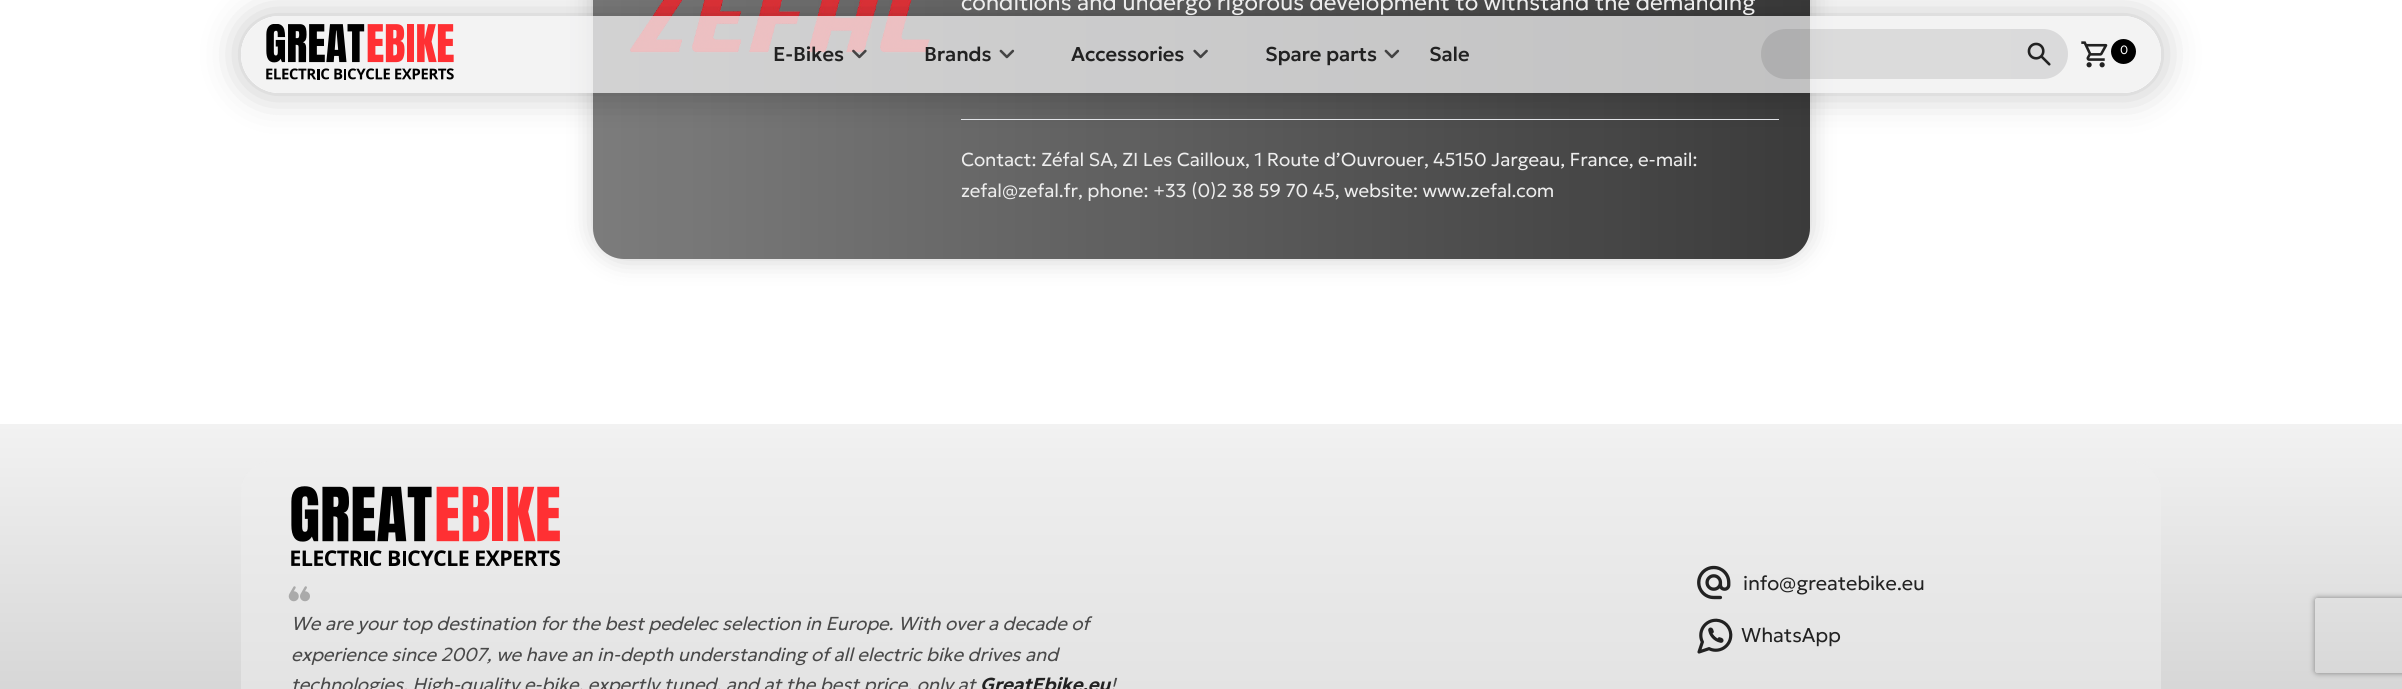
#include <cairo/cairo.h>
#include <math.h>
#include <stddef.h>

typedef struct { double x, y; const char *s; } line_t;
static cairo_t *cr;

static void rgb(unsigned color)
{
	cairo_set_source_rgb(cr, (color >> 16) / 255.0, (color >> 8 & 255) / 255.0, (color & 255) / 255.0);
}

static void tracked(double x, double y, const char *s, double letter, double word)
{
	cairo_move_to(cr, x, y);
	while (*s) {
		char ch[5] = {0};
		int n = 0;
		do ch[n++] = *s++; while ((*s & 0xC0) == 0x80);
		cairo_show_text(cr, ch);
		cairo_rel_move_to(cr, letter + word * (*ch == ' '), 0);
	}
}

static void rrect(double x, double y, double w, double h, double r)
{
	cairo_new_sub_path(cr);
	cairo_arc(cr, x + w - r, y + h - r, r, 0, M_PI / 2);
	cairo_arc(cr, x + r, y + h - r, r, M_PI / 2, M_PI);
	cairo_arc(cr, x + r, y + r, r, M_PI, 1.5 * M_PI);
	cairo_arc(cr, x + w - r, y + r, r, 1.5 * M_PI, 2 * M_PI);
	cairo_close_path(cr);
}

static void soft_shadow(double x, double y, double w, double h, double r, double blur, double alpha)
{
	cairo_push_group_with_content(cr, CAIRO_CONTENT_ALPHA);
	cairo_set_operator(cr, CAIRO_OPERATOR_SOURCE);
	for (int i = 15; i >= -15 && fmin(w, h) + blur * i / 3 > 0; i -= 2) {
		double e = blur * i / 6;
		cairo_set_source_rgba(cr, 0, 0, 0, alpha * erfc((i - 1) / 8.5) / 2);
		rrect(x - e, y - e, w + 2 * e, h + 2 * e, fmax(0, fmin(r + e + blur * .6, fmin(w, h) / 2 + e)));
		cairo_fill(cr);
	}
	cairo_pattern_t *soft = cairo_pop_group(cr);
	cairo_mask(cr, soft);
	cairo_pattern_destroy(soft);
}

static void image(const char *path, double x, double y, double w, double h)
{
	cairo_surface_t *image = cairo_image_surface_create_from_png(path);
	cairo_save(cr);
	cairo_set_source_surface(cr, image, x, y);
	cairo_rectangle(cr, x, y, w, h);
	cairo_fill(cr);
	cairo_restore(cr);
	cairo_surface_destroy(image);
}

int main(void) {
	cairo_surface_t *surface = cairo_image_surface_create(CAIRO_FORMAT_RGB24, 2402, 689);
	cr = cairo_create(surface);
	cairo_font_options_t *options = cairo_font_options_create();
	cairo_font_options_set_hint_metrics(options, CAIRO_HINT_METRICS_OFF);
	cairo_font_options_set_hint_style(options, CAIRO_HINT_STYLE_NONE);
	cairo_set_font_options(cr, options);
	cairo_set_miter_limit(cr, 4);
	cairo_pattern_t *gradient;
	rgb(0xffffff);
	cairo_paint(cr);
	rgb(0x000000);
	soft_shadow(593, -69, 1217, 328, 31, 12.5, 0.2);
	gradient = cairo_pattern_create_linear(593, 14, 1810, 14);
	cairo_pattern_add_color_stop_rgba(gradient, 0, 0.467, 0.467, 0.467, 1);
	cairo_pattern_add_color_stop_rgba(gradient, 1, 0.2, 0.2, 0.2, 1);
	cairo_set_source(cr, gradient);
	cairo_pattern_destroy(gradient);
	rrect(593, -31, 1217, 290, 31);
	cairo_fill(cr);
	image("img/1.png", 630, 0, 300, 53);
	rgb(0xe5e7eb);
	cairo_rectangle(cr, 961, 119, 818, 1);
	cairo_fill(cr);
	cairo_set_source_rgba(cr, 1, 1, 1, 0.04);
	cairo_rectangle(cr, 593, 0, 1217, 259);
	cairo_fill(cr);
	cairo_save(cr);
	cairo_set_fill_rule(cr, CAIRO_FILL_RULE_EVEN_ODD);
	cairo_new_path(cr);
	cairo_move_to(cr, 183, 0);
	cairo_line_to(cr, 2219, 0);
	cairo_line_to(cr, 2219, 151);
	cairo_line_to(cr, 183, 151);
	cairo_close_path(cr);
	cairo_move_to(cr, 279.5, 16);
	cairo_line_to(cr, 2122.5, 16);
	cairo_curve_to(cr, 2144, 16, 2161, 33, 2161, 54.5);
	cairo_curve_to(cr, 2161, 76, 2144, 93, 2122.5, 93);
	cairo_line_to(cr, 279.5, 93);
	cairo_curve_to(cr, 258, 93, 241, 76, 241, 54.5);
	cairo_curve_to(cr, 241, 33, 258, 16, 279.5, 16);
	cairo_close_path(cr);
	cairo_clip(cr);
	rgb(0x000000);
	soft_shadow(241, 16, 1920, 77, 38.5, 19, 0.25);
	cairo_restore(cr);
	cairo_set_source_rgba(cr, 0.961, 0.961, 0.969, 0.5);
	rrect(241, 16, 1920, 77, 38.5);
	cairo_fill(cr);
	cairo_set_source_rgba(cr, 0.922, 0.922, 0.922, 0.5);
	rrect(241, 16, 1920, 77, 38.5);
	cairo_fill(cr);
	image("img/2.png", 266, 24, 188, 56);
	image("img/3.png", 852, 49, 15, 10);
	image("img/4.png", 999, 49, 16, 10);
	image("img/5.png", 1193, 49, 15, 10);
	image("img/6.png", 1384, 49, 16, 10);
	cairo_set_source_rgba(cr, 0, 0, 0, 0.1);
	cairo_new_path(cr);
	cairo_move_to(cr, 1786, 29);
	cairo_line_to(cr, 2011, 29);
	cairo_line_to(cr, 2011, 79);
	cairo_line_to(cr, 1786, 79);
	cairo_curve_to(cr, 1772, 79, 1761, 68, 1761, 54);
	cairo_curve_to(cr, 1761, 40, 1772, 29, 1786, 29);
	cairo_close_path(cr);
	cairo_fill(cr);
	rgb(0xdadadb);
	cairo_new_path(cr);
	cairo_move_to(cr, 2011, 29);
	cairo_line_to(cr, 2043, 29);
	cairo_curve_to(cr, 2057, 29, 2068, 40, 2068, 54);
	cairo_curve_to(cr, 2068, 68, 2057, 79, 2043, 79);
	cairo_line_to(cr, 2011, 79);
	cairo_close_path(cr);
	cairo_fill(cr);
	image("img/7.png", 2027, 42, 24, 24);
	image("img/8.png", 2081, 41, 27, 27);
	rgb(0x000000);
	cairo_arc(cr, 2123.5, 51.5, 12.5, 0, 2 * M_PI);
	cairo_fill(cr);
	gradient = cairo_pattern_create_linear(1201, 424, 1201, 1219);
	cairo_pattern_add_color_stop_rgba(gradient, 0, 0.949, 0.949, 0.949, 1);
	cairo_pattern_add_color_stop_rgba(gradient, 1, 0.627, 0.627, 0.627, 1);
	cairo_set_source(cr, gradient);
	cairo_pattern_destroy(gradient);
	cairo_rectangle(cr, 0, 424, 2402, 265);
	cairo_fill(cr);
	cairo_set_source_rgba(cr, 0.929, 0.929, 0.929, 0.53);
	rrect(241, 461, 1920, 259, 31);
	cairo_fill(cr);
	image("img/9.png", 291, 486, 269, 80);
	image("img/10.png", 288, 586, 22, 16);
	image("img/11.png", 1697, 565, 34, 35);
	image("img/12.png", 1697, 618, 36, 36);
	cairo_save(cr);
	cairo_set_fill_rule(cr, CAIRO_FILL_RULE_EVEN_ODD);
	cairo_new_path(cr);
	cairo_move_to(cr, 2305, 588);
	cairo_line_to(cr, 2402, 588);
	cairo_line_to(cr, 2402, 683);
	cairo_line_to(cr, 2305, 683);
	cairo_close_path(cr);
	cairo_move_to(cr, 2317.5, 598);
	cairo_line_to(cr, 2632.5, 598);
	cairo_curve_to(cr, 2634, 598, 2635, 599, 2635, 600.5);
	cairo_line_to(cr, 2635, 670.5);
	cairo_curve_to(cr, 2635, 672, 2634, 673, 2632.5, 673);
	cairo_line_to(cr, 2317.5, 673);
	cairo_curve_to(cr, 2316, 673, 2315, 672, 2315, 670.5);
	cairo_line_to(cr, 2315, 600.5);
	cairo_curve_to(cr, 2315, 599, 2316, 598, 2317.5, 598);
	cairo_close_path(cr);
	cairo_clip(cr);
	rgb(0x808080);
	soft_shadow(2315, 598, 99, 75, 2.5, 3, 1);
	cairo_restore(cr);
	cairo_select_font_face(cr, "Geologica Light", CAIRO_FONT_SLANT_NORMAL, CAIRO_FONT_WEIGHT_NORMAL);
	cairo_set_font_size(cr, 22.5);
	rgb(0xededed);
	tracked(961, 10, "conditions and undergo rigorous development to withstand the demanding", -0.12, 0);
	cairo_set_font_size(cr, 18.75);
	tracked(961, 166, "Contact: Zéfal SA, ZI Les Cailloux, 1 Route d’Ouvrouer, 45150 Jargeau, France, e-mail:", -0.12, 0);
	tracked(961, 197, "zefal@zefal.fr, phone: +33 (0)2 38 59 70 45, website: www.zefal.com", -0.12, 0);
	cairo_select_font_face(cr, "Geologica Medium", CAIRO_FONT_SLANT_NORMAL, CAIRO_FONT_WEIGHT_NORMAL);
	cairo_set_font_size(cr, 20);
	rgb(0x222222);
	{
		static const line_t items[] = {
			{773, 61, "E-Bikes"},
			{924, 61, "Brands"},
			{1071, 61, "Accessories"},
			{1265, 61, "Spare parts"},
			{1429, 61, "Sale"},
		};
		for (size_t i = 0; i < sizeof items / sizeof *items; i++) {
			tracked(items[i].x, items[i].y, items[i].s, -0.12, 0);
		}
	}
	cairo_select_font_face(cr, "Geologica Light", CAIRO_FONT_SLANT_NORMAL, CAIRO_FONT_WEIGHT_NORMAL);
	cairo_set_font_size(cr, 12);
	rgb(0xffffff);
	tracked(2120, 54, "0", -0.12, 0);
	cairo_select_font_face(cr, "Geologica Light", CAIRO_FONT_SLANT_ITALIC, CAIRO_FONT_WEIGHT_NORMAL);
	cairo_set_font_size(cr, 18.75);
	rgb(0x494949);
	{
		static const line_t items[] = {
			{291, 630, "We are your top destination for the best pedelec selection in Europe. With over a decade of"},
			{291, 661, "experience since 2007, we have an in-depth understanding of all electric bike drives and"},
			{291, 691, "technologies. High-quality e-bike, expertly tuned, and at the best price, only at"},
		};
		for (size_t i = 0; i < sizeof items / sizeof *items; i++) {
			tracked(items[i].x, items[i].y, items[i].s, -0.12, 0);
		}
	}
	cairo_select_font_face(cr, "Geologica SemiBold", CAIRO_FONT_SLANT_ITALIC, CAIRO_FONT_WEIGHT_NORMAL);
	rgb(0x222222);
	tracked(980, 691, "GreatEbike.eu", -0.12, 0);
	cairo_select_font_face(cr, "Geologica Light", CAIRO_FONT_SLANT_ITALIC, CAIRO_FONT_WEIGHT_NORMAL);
	rgb(0x494949);
	tracked(1110, 691, "!", -0.12, 0);
	cairo_select_font_face(cr, "Geologica Light", CAIRO_FONT_SLANT_NORMAL, CAIRO_FONT_WEIGHT_NORMAL);
	cairo_set_font_size(cr, 20);
	rgb(0x222222);
	tracked(1743, 590, "info@greatebike.eu", -0.12, 0);
	tracked(1741, 642, "WhatsApp", -0.12, 0);
	cairo_surface_write_to_png(surface, "page.png");
	cairo_font_options_destroy(options);
	cairo_destroy(cr);
	cairo_surface_destroy(surface);
	return 0;
}
